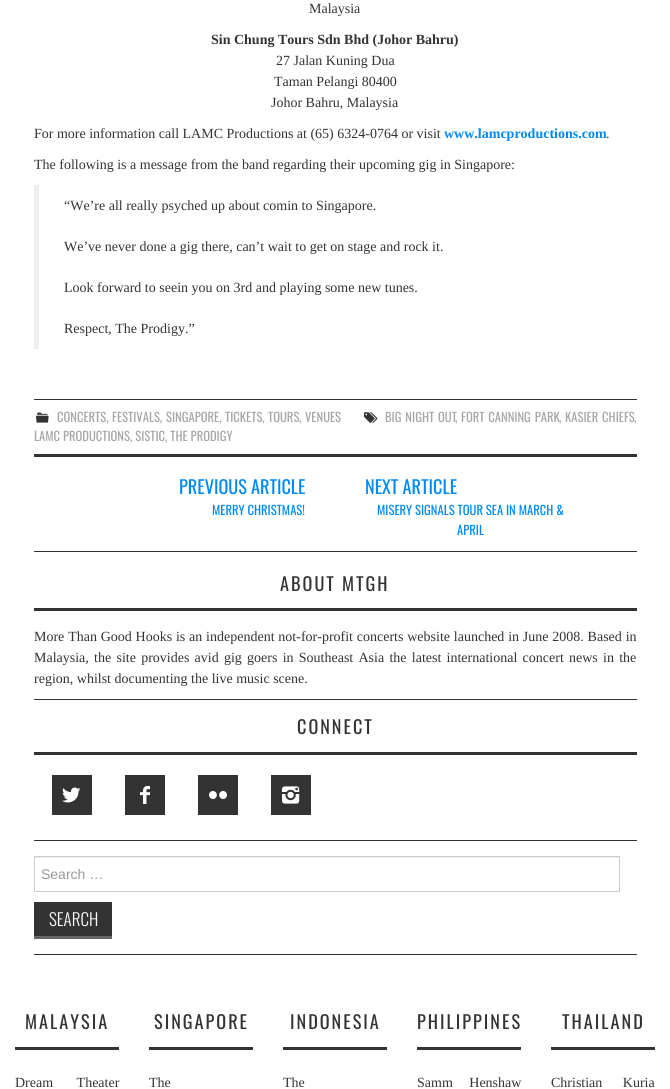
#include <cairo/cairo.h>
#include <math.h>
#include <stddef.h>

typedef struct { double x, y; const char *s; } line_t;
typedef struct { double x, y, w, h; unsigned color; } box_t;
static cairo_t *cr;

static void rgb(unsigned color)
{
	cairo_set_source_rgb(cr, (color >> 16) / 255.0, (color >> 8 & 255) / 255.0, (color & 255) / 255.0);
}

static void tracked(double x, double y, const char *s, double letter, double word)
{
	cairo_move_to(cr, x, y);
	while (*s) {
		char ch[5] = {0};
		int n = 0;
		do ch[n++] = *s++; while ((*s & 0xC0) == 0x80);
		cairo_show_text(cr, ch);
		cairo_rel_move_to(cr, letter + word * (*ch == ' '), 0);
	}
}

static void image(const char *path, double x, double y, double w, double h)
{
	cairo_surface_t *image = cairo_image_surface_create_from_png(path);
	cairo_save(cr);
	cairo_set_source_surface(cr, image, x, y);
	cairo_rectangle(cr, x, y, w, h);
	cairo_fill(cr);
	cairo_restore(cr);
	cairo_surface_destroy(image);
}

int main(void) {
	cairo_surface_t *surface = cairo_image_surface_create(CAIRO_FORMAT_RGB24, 670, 1089);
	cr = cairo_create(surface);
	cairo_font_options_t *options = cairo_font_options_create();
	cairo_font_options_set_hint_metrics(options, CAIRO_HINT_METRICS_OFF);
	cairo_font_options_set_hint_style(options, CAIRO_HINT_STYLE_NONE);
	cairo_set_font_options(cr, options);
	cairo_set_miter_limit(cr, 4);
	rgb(0xffffff);
	cairo_paint(cr);
	{
		static const box_t items[] = {
			{34, 185, 5, 164, 0xeeeeee},
			{34, 399, 603, 1, 0x333333},
			{34, 454, 603, 3, 0x333333},
		};
		for (size_t i = 0; i < sizeof items / sizeof *items; i++) {
			rgb(items[i].color);
			cairo_rectangle(cr, items[i].x, items[i].y, items[i].w, items[i].h);
			cairo_fill(cr);
		}
	}
	image("img/1.png", 364, 412, 14, 11);
	image("img/2.png", 36, 412, 13, 11);
	{
		static const box_t items[] = {
			{34, 551, 603, 1, 0x333333},
			{34, 699, 603, 1, 0x333333},
			{34, 608, 603, 3, 0x333333},
			{34, 840, 603, 1, 0x333333},
			{34, 752, 603, 3, 0x333333},
			{52, 775, 40, 40, 0x333333},
		};
		for (size_t i = 0; i < sizeof items / sizeof *items; i++) {
			rgb(items[i].color);
			cairo_rectangle(cr, items[i].x, items[i].y, items[i].w, items[i].h);
			cairo_fill(cr);
		}
	}
	image("img/3.png", 62, 787, 19, 16);
	cairo_rectangle(cr, 125, 775, 40, 40);
	cairo_fill(cr);
	image("img/4.png", 140, 786, 10, 18);
	cairo_rectangle(cr, 198, 775, 40, 40);
	cairo_fill(cr);
	image("img/5.png", 209, 791, 18, 8);
	cairo_rectangle(cr, 271, 775, 40, 40);
	cairo_fill(cr);
	image("img/6.png", 282, 786, 18, 18);
	cairo_rectangle(cr, 34, 954, 603, 1);
	cairo_fill(cr);
	rgb(0xececec);
	cairo_rectangle(cr, 35, 857, 584, 1);
	cairo_fill(cr);
	cairo_rectangle(cr, 34.5, 856.5, 585, 35);
	rgb(0xcccccc);
	cairo_set_line_width(cr, 1);
	cairo_stroke(cr);
	{
		static const box_t items[] = {
			{34, 902, 78, 34, 0x333333},
			{34, 936, 78, 3, 0x666666},
			{15, 1047, 104, 3, 0x333333},
			{149, 1047, 104, 3, 0x333333},
			{283, 1047, 104, 3, 0x333333},
			{417, 1047, 104, 3, 0x333333},
			{551, 1047, 104, 3, 0x333333},
		};
		for (size_t i = 0; i < sizeof items / sizeof *items; i++) {
			rgb(items[i].color);
			cairo_rectangle(cr, items[i].x, items[i].y, items[i].w, items[i].h);
			cairo_fill(cr);
		}
	}
	cairo_select_font_face(cr, "Liberation Serif", CAIRO_FONT_SLANT_NORMAL, CAIRO_FONT_WEIGHT_NORMAL);
	cairo_set_font_size(cr, 14);
	cairo_move_to(cr, 309, 13);
	cairo_show_text(cr, "Malaysia");
	cairo_select_font_face(cr, "Liberation Serif", CAIRO_FONT_SLANT_NORMAL, CAIRO_FONT_WEIGHT_BOLD);
	cairo_move_to(cr, 211, 44);
	cairo_show_text(cr, "Sin Chung Tours Sdn Bhd (Johor Bahru)");
	cairo_select_font_face(cr, "Liberation Serif", CAIRO_FONT_SLANT_NORMAL, CAIRO_FONT_WEIGHT_NORMAL);
	{
		static const line_t items[] = {
			{276, 65, "27 Jalan Kuning Dua"},
			{274, 86, "Taman Pelangi 80400"},
			{271, 107, "Johor Bahru, Malaysia"},
			{34, 138, "For more information call LAMC Productions at (65) 6324-0764 or visit"},
		};
		for (size_t i = 0; i < sizeof items / sizeof *items; i++) {
			cairo_move_to(cr, items[i].x, items[i].y);
			cairo_show_text(cr, items[i].s);
		}
	}
	cairo_select_font_face(cr, "Liberation Serif", CAIRO_FONT_SLANT_NORMAL, CAIRO_FONT_WEIGHT_BOLD);
	rgb(0x0089f6);
	cairo_move_to(cr, 444, 138);
	cairo_show_text(cr, "www.lamcproductions.com");
	cairo_select_font_face(cr, "Liberation Serif", CAIRO_FONT_SLANT_NORMAL, CAIRO_FONT_WEIGHT_NORMAL);
	rgb(0x333333);
	{
		static const line_t items[] = {
			{606, 138, "."},
			{34, 169, "The following is a message from the band regarding their upcoming gig in Singapore:"},
			{64, 210, "“We’re all really psyched up about comin to Singapore."},
			{64, 251, "We’ve never done a gig there, can’t wait to get on stage and rock it."},
			{64, 292, "Look forward to seein you on 3rd and playing some new tunes."},
			{64, 333, "Respect, The Prodigy.”"},
		};
		for (size_t i = 0; i < sizeof items / sizeof *items; i++) {
			cairo_move_to(cr, items[i].x, items[i].y);
			cairo_show_text(cr, items[i].s);
		}
	}
	cairo_select_font_face(cr, "Oswald", CAIRO_FONT_SLANT_NORMAL, CAIRO_FONT_WEIGHT_NORMAL);
	cairo_set_font_size(cr, 12.6);
	rgb(0xa6a6a6);
	tracked(385, 422, "BIG NIGHT OUT", 0, 1);
	cairo_move_to(cr, 455, 422);
	cairo_show_text(cr, ",");
	tracked(461, 422, "FORT CANNING PARK", 0, 1);
	tracked(565, 422, "KASIER CHIEFS", 0, 1);
	{
		static const line_t items[] = {
			{559, 422, ","},
			{634, 422, ","},
			{34, 441, "LAMC PRODUCTIONS, SISTIC, THE PRODIGY"},
			{57, 422, "CONCERTS,"},
			{112, 422, "FESTIVALS,"},
			{166, 422, "SINGAPORE,"},
			{225, 422, "TICKETS,"},
			{268, 422, "TOURS,"},
			{305, 422, "VENUES"},
		};
		for (size_t i = 0; i < sizeof items / sizeof *items; i++) {
			cairo_move_to(cr, items[i].x, items[i].y);
			cairo_show_text(cr, items[i].s);
		}
	}
	cairo_set_font_size(cr, 18.25);
	rgb(0x0089f6);
	cairo_move_to(cr, 179, 494);
	cairo_show_text(cr, "PREVIOUS ARTICLE");
	cairo_set_font_size(cr, 12.6);
	cairo_move_to(cr, 212, 515);
	cairo_show_text(cr, "MERRY CHRISTMAS!");
	cairo_set_font_size(cr, 18.25);
	cairo_move_to(cr, 365, 494);
	cairo_show_text(cr, "NEXT ARTICLE");
	cairo_set_font_size(cr, 12.6);
	cairo_move_to(cr, 377, 515);
	cairo_show_text(cr, "MISERY SIGNALS TOUR SEA IN MARCH &");
	cairo_move_to(cr, 457, 535);
	cairo_show_text(cr, "APRIL");
	cairo_set_font_size(cr, 18.25);
	rgb(0x333333);
	tracked(280, 591, "ABOUT MTGH", 2, 0);
	cairo_select_font_face(cr, "Liberation Serif", CAIRO_FONT_SLANT_NORMAL, CAIRO_FONT_WEIGHT_NORMAL);
	cairo_set_font_size(cr, 14);
	tracked(34, 641, "More Than Good Hooks is an independent not-for-profit concerts website launched in June 2008. Based in", 0, 0.3);
	tracked(34, 662, "Malaysia, the site provides avid gig goers in Southeast Asia the latest international concert news in the", 0, 1.75);
	cairo_move_to(cr, 34, 683);
	cairo_show_text(cr, "region, whilst documenting the live music scene.");
	cairo_select_font_face(cr, "Oswald", CAIRO_FONT_SLANT_NORMAL, CAIRO_FONT_WEIGHT_NORMAL);
	cairo_set_font_size(cr, 18.25);
	tracked(297, 734, "CONNECT", 2, 0);
	cairo_select_font_face(cr, "Liberation Sans", CAIRO_FONT_SLANT_NORMAL, CAIRO_FONT_WEIGHT_NORMAL);
	cairo_set_font_size(cr, 14);
	rgb(0x999999);
	cairo_move_to(cr, 41, 879);
	cairo_show_text(cr, "Search …");
	cairo_select_font_face(cr, "Oswald Light", CAIRO_FONT_SLANT_NORMAL, CAIRO_FONT_WEIGHT_NORMAL);
	cairo_set_font_size(cr, 17);
	rgb(0xffffff);
	cairo_move_to(cr, 49, 926);
	cairo_show_text(cr, "SEARCH");
	cairo_select_font_face(cr, "Oswald", CAIRO_FONT_SLANT_NORMAL, CAIRO_FONT_WEIGHT_NORMAL);
	cairo_set_font_size(cr, 18.25);
	rgb(0x333333);
	tracked(25, 1029, "MALAYSIA", 2, 0);
	cairo_select_font_face(cr, "Liberation Serif", CAIRO_FONT_SLANT_NORMAL, CAIRO_FONT_WEIGHT_NORMAL);
	cairo_set_font_size(cr, 14);
	tracked(15, 1087, "Dream Theater", 0, 20);
	cairo_select_font_face(cr, "Oswald", CAIRO_FONT_SLANT_NORMAL, CAIRO_FONT_WEIGHT_NORMAL);
	cairo_set_font_size(cr, 18.25);
	tracked(154, 1029, "SINGAPORE", 2, 0);
	cairo_select_font_face(cr, "Liberation Serif", CAIRO_FONT_SLANT_NORMAL, CAIRO_FONT_WEIGHT_NORMAL);
	cairo_set_font_size(cr, 14);
	cairo_move_to(cr, 149, 1087);
	cairo_show_text(cr, "The");
	cairo_select_font_face(cr, "Oswald", CAIRO_FONT_SLANT_NORMAL, CAIRO_FONT_WEIGHT_NORMAL);
	cairo_set_font_size(cr, 18.25);
	tracked(290, 1029, "INDONESIA", 2, 0);
	cairo_select_font_face(cr, "Liberation Serif", CAIRO_FONT_SLANT_NORMAL, CAIRO_FONT_WEIGHT_NORMAL);
	cairo_set_font_size(cr, 14);
	cairo_move_to(cr, 283, 1087);
	cairo_show_text(cr, "The");
	cairo_select_font_face(cr, "Oswald", CAIRO_FONT_SLANT_NORMAL, CAIRO_FONT_WEIGHT_NORMAL);
	cairo_set_font_size(cr, 18.25);
	tracked(417, 1029, "PHILIPPINES", 2, 0);
	cairo_select_font_face(cr, "Liberation Serif", CAIRO_FONT_SLANT_NORMAL, CAIRO_FONT_WEIGHT_NORMAL);
	cairo_set_font_size(cr, 14);
	tracked(417, 1087, "Samm Henshaw", 0, 13);
	cairo_select_font_face(cr, "Oswald", CAIRO_FONT_SLANT_NORMAL, CAIRO_FONT_WEIGHT_NORMAL);
	cairo_set_font_size(cr, 18.25);
	tracked(562, 1029, "THAILAND", 2, 0);
	cairo_select_font_face(cr, "Liberation Serif", CAIRO_FONT_SLANT_NORMAL, CAIRO_FONT_WEIGHT_NORMAL);
	cairo_set_font_size(cr, 14);
	tracked(551, 1087, "Christian Kuria", 0, 17);
	cairo_surface_write_to_png(surface, "page.png");
	cairo_font_options_destroy(options);
	cairo_destroy(cr);
	cairo_surface_destroy(surface);
	return 0;
}
